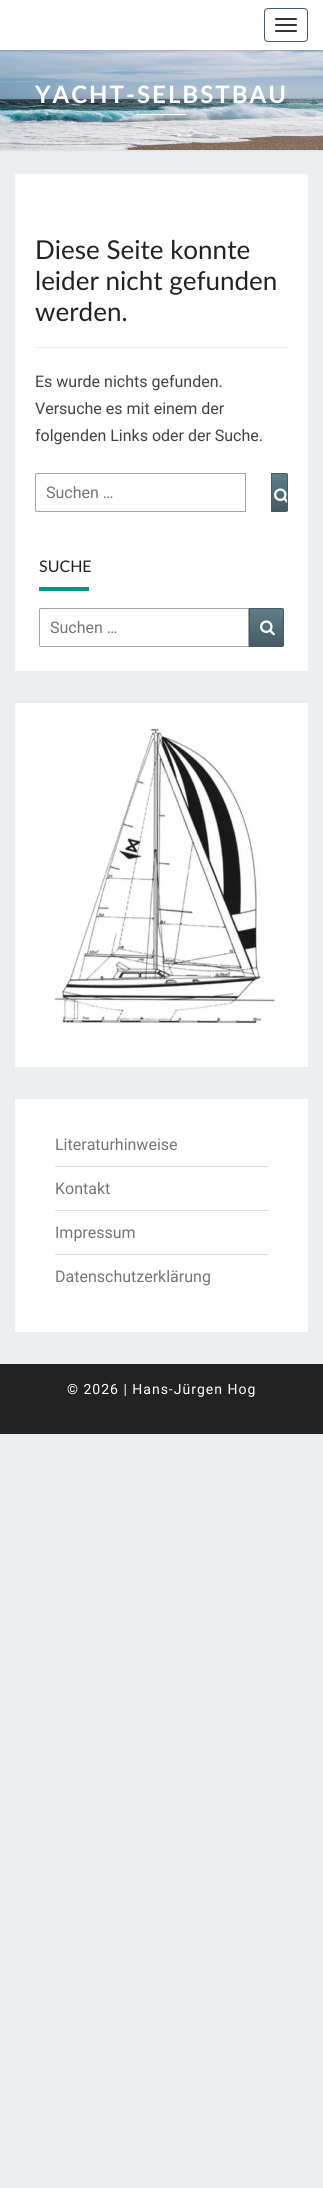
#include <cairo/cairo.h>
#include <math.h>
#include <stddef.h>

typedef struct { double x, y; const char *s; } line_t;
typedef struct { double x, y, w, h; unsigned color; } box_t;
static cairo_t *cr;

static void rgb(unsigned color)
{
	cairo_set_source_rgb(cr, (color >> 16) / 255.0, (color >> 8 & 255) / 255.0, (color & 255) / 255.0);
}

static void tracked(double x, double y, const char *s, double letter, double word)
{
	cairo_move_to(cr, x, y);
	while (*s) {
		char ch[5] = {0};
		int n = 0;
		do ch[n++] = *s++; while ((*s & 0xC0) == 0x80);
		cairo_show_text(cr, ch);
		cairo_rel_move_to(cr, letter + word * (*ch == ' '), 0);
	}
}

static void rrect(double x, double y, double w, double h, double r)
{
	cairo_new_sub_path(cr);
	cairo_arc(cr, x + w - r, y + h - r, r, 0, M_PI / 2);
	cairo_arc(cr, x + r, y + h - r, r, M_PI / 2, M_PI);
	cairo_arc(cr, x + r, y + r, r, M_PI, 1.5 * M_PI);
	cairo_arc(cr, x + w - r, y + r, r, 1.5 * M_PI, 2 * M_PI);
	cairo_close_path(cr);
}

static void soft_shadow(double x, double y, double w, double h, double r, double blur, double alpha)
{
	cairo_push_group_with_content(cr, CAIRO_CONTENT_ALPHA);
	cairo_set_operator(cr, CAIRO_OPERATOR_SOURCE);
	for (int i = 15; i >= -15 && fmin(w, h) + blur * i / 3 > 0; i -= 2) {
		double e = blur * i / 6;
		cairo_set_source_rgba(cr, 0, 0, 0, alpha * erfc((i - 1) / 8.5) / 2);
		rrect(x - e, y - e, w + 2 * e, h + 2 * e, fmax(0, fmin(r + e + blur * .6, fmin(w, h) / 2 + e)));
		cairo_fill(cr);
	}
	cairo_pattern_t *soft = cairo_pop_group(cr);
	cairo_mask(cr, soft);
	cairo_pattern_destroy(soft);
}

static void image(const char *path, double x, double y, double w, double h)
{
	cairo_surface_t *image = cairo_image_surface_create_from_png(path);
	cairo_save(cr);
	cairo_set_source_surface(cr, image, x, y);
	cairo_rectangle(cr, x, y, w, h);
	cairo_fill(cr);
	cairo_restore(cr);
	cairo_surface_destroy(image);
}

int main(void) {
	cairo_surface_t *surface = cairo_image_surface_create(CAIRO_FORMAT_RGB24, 323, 2188);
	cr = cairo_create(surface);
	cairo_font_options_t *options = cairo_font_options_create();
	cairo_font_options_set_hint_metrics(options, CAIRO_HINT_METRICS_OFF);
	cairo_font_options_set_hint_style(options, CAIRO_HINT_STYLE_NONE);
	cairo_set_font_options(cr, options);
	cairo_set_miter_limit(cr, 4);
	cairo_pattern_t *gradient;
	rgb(0xeceff1);
	cairo_paint(cr);
	rgb(0xb6b6b6);
	soft_shadow(-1, 49, 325, 102, 0, 1, 0.3);
	image("img/1.png", 0, 50, 323, 100);
	rgb(0x646464);
	soft_shadow(0, 1, 323, 50, 0, 0.5, 0.2);
	rgb(0xffffff);
	cairo_rectangle(cr, 0, 0, 323, 50);
	cairo_fill(cr);
	rrect(264.5, 8.5, 43, 33, 3.5);
	rgb(0x455a64);
	cairo_set_line_width(cr, 1);
	cairo_stroke(cr);
	rgb(0x333333);
	rrect(275, 18, 22, 2, 1);
	cairo_fill(cr);
	rrect(275, 24, 22, 2, 1);
	cairo_fill(cr);
	rrect(275, 30, 22, 2, 1);
	cairo_fill(cr);
	{
		static const box_t items[] = {
			{136, 114, 50, 1, 0xffffff},
			{15, 174, 293, 497, 0xffffff},
			{35, 347, 253, 1, 0xeeeeee},
		};
		for (size_t i = 0; i < sizeof items / sizeof *items; i++) {
			rgb(items[i].color);
			cairo_rectangle(cr, items[i].x, items[i].y, items[i].w, items[i].h);
			cairo_fill(cr);
		}
	}
	cairo_new_path(cr);
	cairo_move_to(cr, 37, 473.5);
	cairo_line_to(cr, 245.5, 473.5);
	cairo_line_to(cr, 245.5, 511.5);
	cairo_line_to(cr, 37, 511.5);
	cairo_curve_to(cr, 36, 511.5, 35.5, 511, 35.5, 510);
	cairo_line_to(cr, 35.5, 475);
	cairo_curve_to(cr, 35.5, 474, 36, 473.5, 37, 473.5);
	cairo_close_path(cr);
	rgb(0xaaa1a8);
	cairo_stroke(cr);
	gradient = cairo_pattern_create_linear(280, 474, 280, 511);
	cairo_pattern_add_color_stop_rgba(gradient, 0, 0.376, 0.49, 0.545, 1);
	cairo_pattern_add_color_stop_rgba(gradient, 1, 0.271, 0.353, 0.392, 1);
	cairo_set_source(cr, gradient);
	cairo_pattern_destroy(gradient);
	cairo_rectangle(cr, 272, 474, 16, 37);
	cairo_fill(cr);
	cairo_new_path(cr);
	cairo_move_to(cr, 271.5, 473.5);
	cairo_line_to(cr, 286, 473.5);
	cairo_curve_to(cr, 287, 473.5, 287.5, 474, 287.5, 475);
	cairo_line_to(cr, 287.5, 510);
	cairo_curve_to(cr, 287.5, 511, 287, 511.5, 286, 511.5);
	cairo_line_to(cr, 271.5, 511.5);
	cairo_close_path(cr);
	rgb(0x455a64);
	cairo_stroke(cr);
	image("img/2.png", 274, 488, 13, 15);
	rgb(0x009688);
	cairo_rectangle(cr, 39, 587, 50, 4);
	cairo_fill(cr);
	cairo_new_path(cr);
	cairo_move_to(cr, 41, 608.5);
	cairo_line_to(cr, 248.5, 608.5);
	cairo_line_to(cr, 248.5, 646.5);
	cairo_line_to(cr, 41, 646.5);
	cairo_curve_to(cr, 40, 646.5, 39.5, 646, 39.5, 645);
	cairo_line_to(cr, 39.5, 610);
	cairo_curve_to(cr, 39.5, 609, 40, 608.5, 41, 608.5);
	cairo_close_path(cr);
	rgb(0xaaa1a8);
	cairo_stroke(cr);
	gradient = cairo_pattern_create_linear(267, 609, 267, 646);
	cairo_pattern_add_color_stop_rgba(gradient, 0, 0.376, 0.49, 0.545, 1);
	cairo_pattern_add_color_stop_rgba(gradient, 1, 0.271, 0.353, 0.392, 1);
	cairo_set_source(cr, gradient);
	cairo_pattern_destroy(gradient);
	cairo_rectangle(cr, 250, 609, 34, 37);
	cairo_fill(cr);
	cairo_new_path(cr);
	cairo_move_to(cr, 249.5, 608.5);
	cairo_line_to(cr, 282, 608.5);
	cairo_curve_to(cr, 283, 608.5, 283.5, 609, 283.5, 610);
	cairo_line_to(cr, 283.5, 645);
	cairo_curve_to(cr, 283.5, 646, 283, 646.5, 282, 646.5);
	cairo_line_to(cr, 249.5, 646.5);
	cairo_close_path(cr);
	rgb(0x455a64);
	cairo_stroke(cr);
	image("img/3.png", 260, 620, 15, 16);
	rgb(0xffffff);
	cairo_rectangle(cr, 15, 703, 293, 364);
	cairo_fill(cr);
	image("img/4.png", 54, 727, 225, 297);
	{
		static const box_t items[] = {
			{15, 1099, 293, 233, 0xffffff},
			{55, 1166, 213, 1, 0xdddddd},
			{55, 1210, 213, 1, 0xdddddd},
			{55, 1254, 213, 1, 0xdddddd},
			{0, 1364, 323, 70, 0x222222},
		};
		for (size_t i = 0; i < sizeof items / sizeof *items; i++) {
			rgb(items[i].color);
			cairo_rectangle(cr, items[i].x, items[i].y, items[i].w, items[i].h);
			cairo_fill(cr);
		}
	}
	cairo_select_font_face(cr, "Lato", CAIRO_FONT_SLANT_NORMAL, CAIRO_FONT_WEIGHT_BOLD);
	cairo_set_font_size(cr, 24);
	rgb(0xffffff);
	tracked(35, 103, "YACHT-SELBSTBAU", 2, 0);
	cairo_select_font_face(cr, "Lato", CAIRO_FONT_SLANT_NORMAL, CAIRO_FONT_WEIGHT_NORMAL);
	cairo_set_font_size(cr, 26);
	rgb(0x212121);
	{
		static const line_t items[] = {
			{35, 259, "Diese Seite konnte"},
			{35, 290, "leider nicht gefunden"},
			{35, 321, "werden."},
		};
		for (size_t i = 0; i < sizeof items / sizeof *items; i++) {
			cairo_move_to(cr, items[i].x, items[i].y);
			cairo_show_text(cr, items[i].s);
		}
	}
	cairo_select_font_face(cr, "Roboto", CAIRO_FONT_SLANT_NORMAL, CAIRO_FONT_WEIGHT_NORMAL);
	cairo_set_font_size(cr, 16);
	rgb(0x424242);
	{
		static const line_t items[] = {
			{35, 387, "Es wurde nichts gefunden."},
			{35, 414, "Versuche es mit einem der"},
			{35, 441, "folgenden Links oder der Suche."},
		};
		for (size_t i = 0; i < sizeof items / sizeof *items; i++) {
			cairo_move_to(cr, items[i].x, items[i].y);
			cairo_show_text(cr, items[i].s);
		}
	}
	rgb(0x757575);
	cairo_move_to(cr, 46, 498);
	cairo_show_text(cr, "Suchen …");
	cairo_select_font_face(cr, "Lato", CAIRO_FONT_SLANT_NORMAL, CAIRO_FONT_WEIGHT_NORMAL);
	rgb(0x212121);
	cairo_move_to(cr, 39, 572);
	cairo_show_text(cr, "SUCHE");
	cairo_select_font_face(cr, "Roboto", CAIRO_FONT_SLANT_NORMAL, CAIRO_FONT_WEIGHT_NORMAL);
	rgb(0x757575);
	{
		static const line_t items[] = {
			{50, 633, "Suchen …"},
			{55, 1150, "Literaturhinweise"},
			{55, 1194, "Kontakt"},
			{55, 1238, "Impressum"},
			{55, 1282, "Datenschutzerklärung"},
		};
		for (size_t i = 0; i < sizeof items / sizeof *items; i++) {
			cairo_move_to(cr, items[i].x, items[i].y);
			cairo_show_text(cr, items[i].s);
		}
	}
	cairo_set_font_size(cr, 14);
	rgb(0xffffff);
	tracked(67, 1394, "© 2026 | Hans-Jürgen Hog", 1, 0);
	cairo_surface_write_to_png(surface, "page.png");
	cairo_font_options_destroy(options);
	cairo_destroy(cr);
	cairo_surface_destroy(surface);
	return 0;
}
